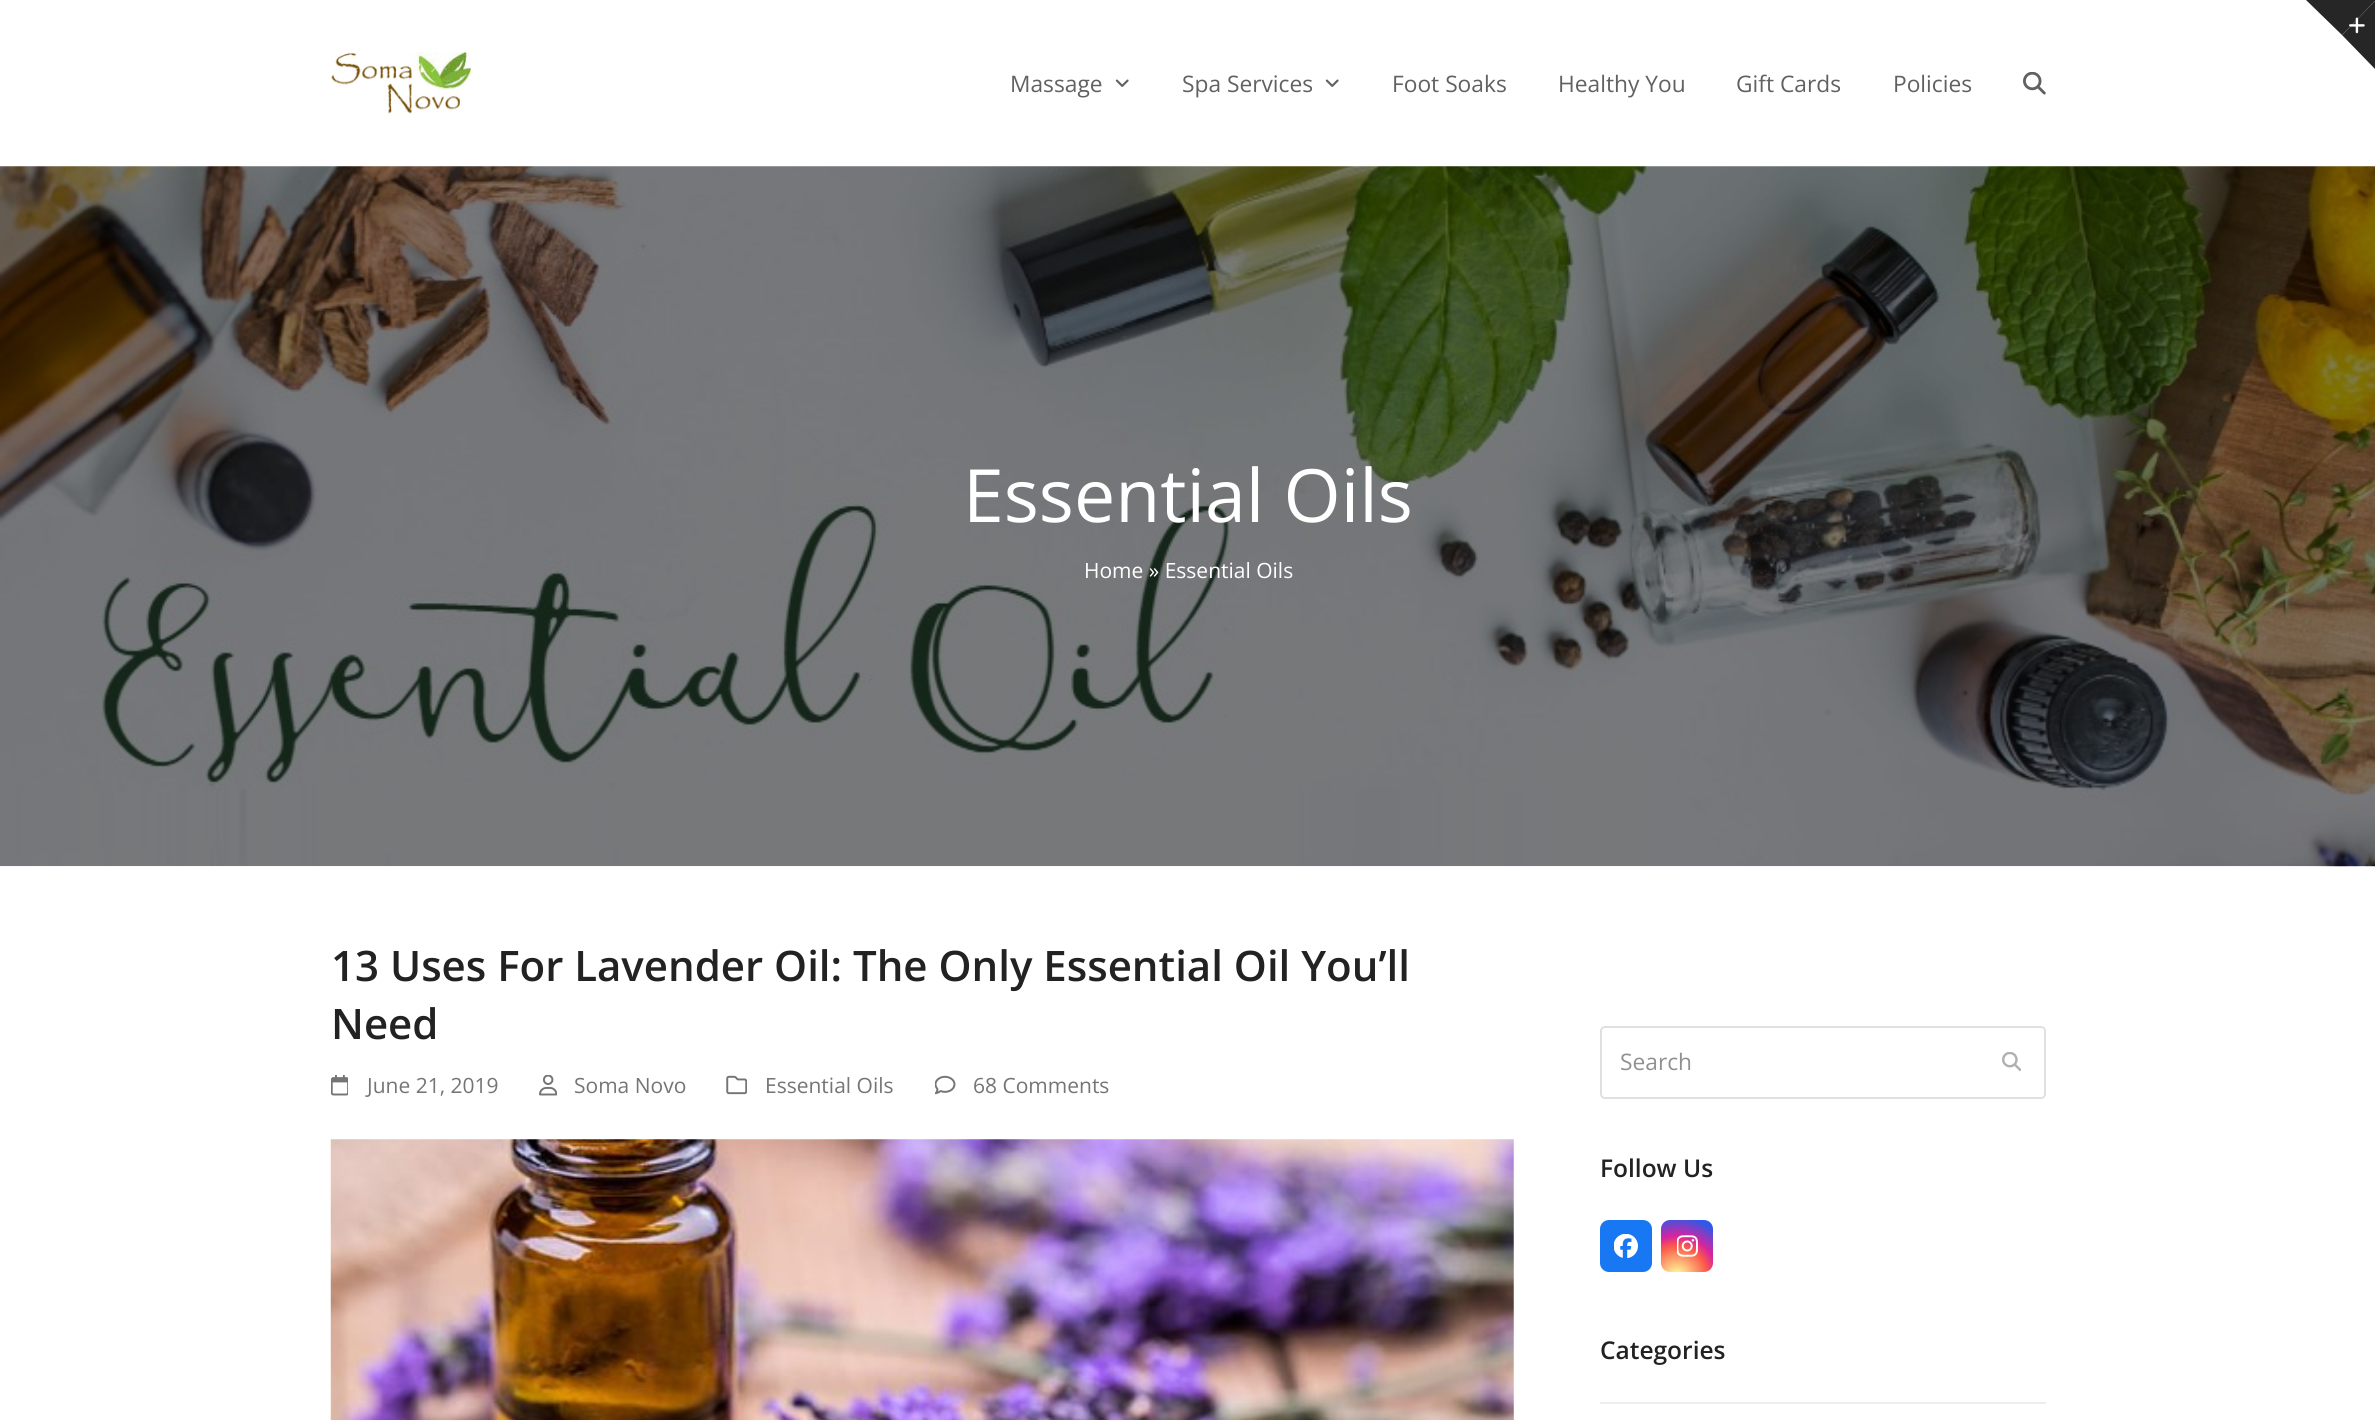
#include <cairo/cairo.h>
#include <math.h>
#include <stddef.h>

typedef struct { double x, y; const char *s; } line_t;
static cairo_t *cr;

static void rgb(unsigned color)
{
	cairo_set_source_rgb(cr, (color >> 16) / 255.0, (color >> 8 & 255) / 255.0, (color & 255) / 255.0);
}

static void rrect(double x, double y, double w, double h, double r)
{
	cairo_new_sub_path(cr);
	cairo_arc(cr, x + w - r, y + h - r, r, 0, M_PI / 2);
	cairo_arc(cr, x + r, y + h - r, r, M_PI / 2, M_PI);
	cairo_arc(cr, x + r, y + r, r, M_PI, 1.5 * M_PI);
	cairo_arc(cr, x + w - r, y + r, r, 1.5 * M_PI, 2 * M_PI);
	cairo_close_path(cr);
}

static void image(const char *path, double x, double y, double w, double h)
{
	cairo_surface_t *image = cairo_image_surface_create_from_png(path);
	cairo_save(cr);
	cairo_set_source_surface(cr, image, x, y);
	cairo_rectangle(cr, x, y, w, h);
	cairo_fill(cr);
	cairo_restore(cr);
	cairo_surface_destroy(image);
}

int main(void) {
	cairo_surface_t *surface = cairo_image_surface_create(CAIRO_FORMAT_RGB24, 2375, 1420);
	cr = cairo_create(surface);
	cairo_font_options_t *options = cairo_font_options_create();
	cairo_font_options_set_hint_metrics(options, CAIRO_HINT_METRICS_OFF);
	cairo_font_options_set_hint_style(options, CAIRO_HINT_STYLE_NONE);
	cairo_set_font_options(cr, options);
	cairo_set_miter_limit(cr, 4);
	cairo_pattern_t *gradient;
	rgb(0xffffff);
	cairo_paint(cr);
	rgb(0x262626);
	cairo_new_path(cr);
	cairo_move_to(cr, 2306, 0);
	cairo_line_to(cr, 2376, 0);
	cairo_line_to(cr, 2342, 35);
	cairo_close_path(cr);
	cairo_fill(cr);
	cairo_new_path(cr);
	cairo_move_to(cr, 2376, 0);
	cairo_line_to(cr, 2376, 70);
	cairo_line_to(cr, 2342, 35);
	cairo_close_path(cr);
	cairo_fill(cr);
	image("img/1.png", 2349, 17, 16, 17);
	image("img/2.png", 331, 52, 140, 62);
	image("img/3.png", 1115, 79, 14, 8);
	image("img/3.png", 1325, 79, 14, 8);
	image("img/4.png", 2023, 72, 23, 23);
	image("img/5.png", 0, 166, 2375, 701);
	image("img/6.png", 331, 1075, 17, 21);
	image("img/7.png", 539, 1075, 18, 21);
	image("img/8.png", 726, 1075, 21, 20);
	image("img/9.png", 935, 1075, 21, 20);
	image("img/10.png", 330, 1139, 1184, 281);
	rrect(1601, 1027, 444, 71, 4);
	rgb(0xe0e0e0);
	cairo_stroke(cr);
	image("img/11.png", 2002, 1052, 19, 19);
	rgb(0x1877f2);
	rrect(1600, 1220, 52, 52, 9);
	cairo_fill(cr);
	image("img/12.png", 1614, 1234, 24, 24);
	gradient = cairo_pattern_create_radial(1677, 1276, 0, 1677, 1276, 67);
	cairo_pattern_add_color_stop_rgba(gradient, 0, 0.992, 0.957, 0.592, 1);
	cairo_pattern_add_color_stop_rgba(gradient, 0.05, 0.992, 0.957, 0.592, 1);
	cairo_pattern_add_color_stop_rgba(gradient, 0.45, 0.992, 0.349, 0.286, 1);
	cairo_pattern_add_color_stop_rgba(gradient, 0.6, 0.839, 0.141, 0.624, 1);
	cairo_pattern_add_color_stop_rgba(gradient, 0.9, 0.157, 0.353, 0.922, 1);
	cairo_set_source(cr, gradient);
	cairo_pattern_destroy(gradient);
	rrect(1661, 1220, 52, 52, 9);
	cairo_fill(cr);
	image("img/13.png", 1677, 1235, 21, 22);
	rgb(0xeeeeee);
	cairo_rectangle(cr, 1600, 1402, 446, 2);
	cairo_fill(cr);
	cairo_select_font_face(cr, "Open Sans", CAIRO_FONT_SLANT_NORMAL, CAIRO_FONT_WEIGHT_NORMAL);
	cairo_set_font_size(cr, 22.75);
	rgb(0x616161);
	{
		static const line_t items[] = {
			{1010, 92, "Massage"},
			{1182, 92, "Spa Services"},
			{1392, 92, "Foot Soaks"},
			{1558, 92, "Healthy You"},
			{1736, 92, "Gift Cards"},
			{1893, 92, "Policies"},
		};
		for (size_t i = 0; i < sizeof items / sizeof *items; i++) {
			cairo_move_to(cr, items[i].x, items[i].y);
			cairo_show_text(cr, items[i].s);
		}
	}
	cairo_set_font_size(cr, 73.5);
	rgb(0xffffff);
	cairo_move_to(cr, 963, 522);
	cairo_show_text(cr, "Essential Oils");
	cairo_set_font_size(cr, 21);
	cairo_move_to(cr, 1084, 578);
	cairo_show_text(cr, "Home » Essential Oils");
	cairo_select_font_face(cr, "Open Sans SemiBold", CAIRO_FONT_SLANT_NORMAL, CAIRO_FONT_WEIGHT_NORMAL);
	cairo_set_font_size(cr, 42);
	rgb(0x222222);
	cairo_move_to(cr, 331, 981);
	cairo_show_text(cr, "13 Uses For Lavender Oil: The Only Essential Oil You’ll");
	cairo_move_to(cr, 331, 1039);
	cairo_show_text(cr, "Need");
	cairo_select_font_face(cr, "Open Sans", CAIRO_FONT_SLANT_NORMAL, CAIRO_FONT_WEIGHT_NORMAL);
	cairo_set_font_size(cr, 21);
	rgb(0x757575);
	{
		static const line_t items[] = {
			{367, 1093, "June 21, 2019"},
			{574, 1093, "Soma Novo"},
			{765, 1093, "Essential Oils"},
			{973, 1093, "68 Comments"},
		};
		for (size_t i = 0; i < sizeof items / sizeof *items; i++) {
			cairo_move_to(cr, items[i].x, items[i].y);
			cairo_show_text(cr, items[i].s);
		}
	}
	cairo_set_font_size(cr, 22.75);
	rgb(0x909090);
	cairo_move_to(cr, 1620, 1070);
	cairo_show_text(cr, "Search");
	cairo_select_font_face(cr, "Open Sans SemiBold", CAIRO_FONT_SLANT_NORMAL, CAIRO_FONT_WEIGHT_NORMAL);
	cairo_set_font_size(cr, 24.5);
	rgb(0x222222);
	cairo_move_to(cr, 1600, 1177);
	cairo_show_text(cr, "Follow Us");
	cairo_move_to(cr, 1600, 1359);
	cairo_show_text(cr, "Categories");
	cairo_surface_write_to_png(surface, "page.png");
	cairo_font_options_destroy(options);
	cairo_destroy(cr);
	cairo_surface_destroy(surface);
	return 0;
}
